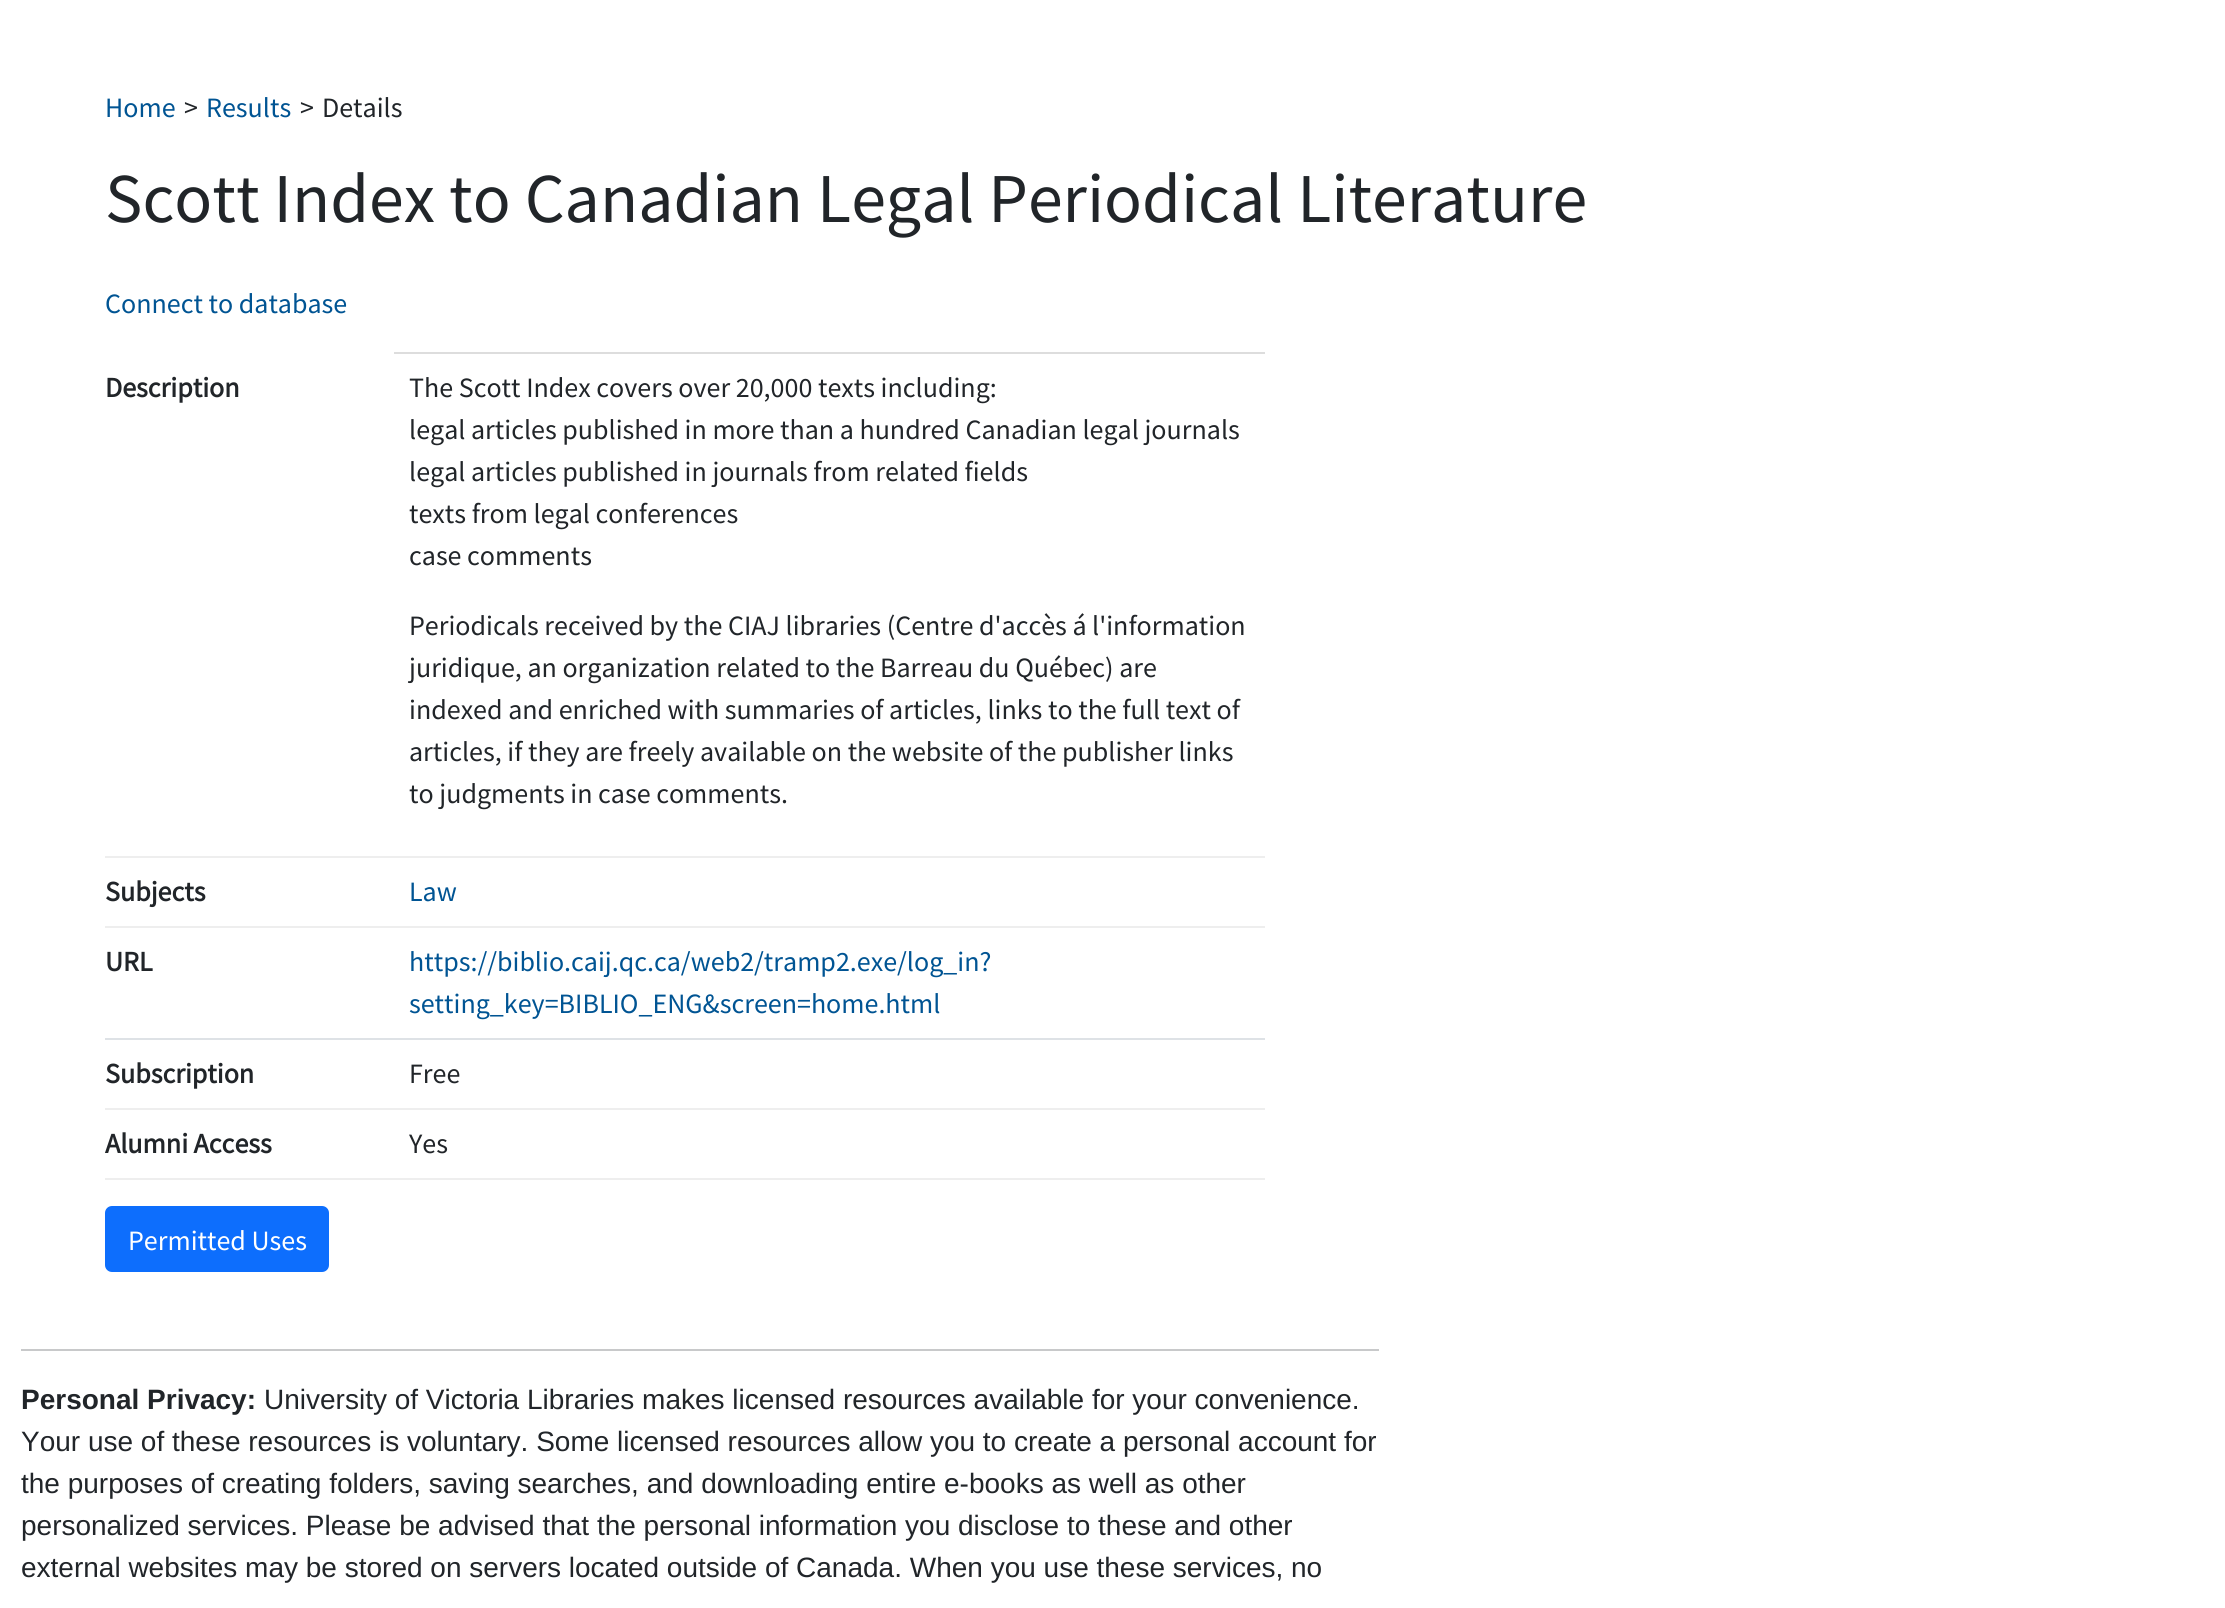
#include <cairo/cairo.h>
#include <math.h>
#include <stddef.h>

typedef struct { double x, y; const char *s; } line_t;
typedef struct { double x, y, w, h; unsigned color; } box_t;
static cairo_t *cr;

static void rgb(unsigned color)
{
	cairo_set_source_rgb(cr, (color >> 16) / 255.0, (color >> 8 & 255) / 255.0, (color & 255) / 255.0);
}

static void rrect(double x, double y, double w, double h, double r)
{
	cairo_new_sub_path(cr);
	cairo_arc(cr, x + w - r, y + h - r, r, 0, M_PI / 2);
	cairo_arc(cr, x + r, y + h - r, r, M_PI / 2, M_PI);
	cairo_arc(cr, x + r, y + r, r, M_PI, 1.5 * M_PI);
	cairo_arc(cr, x + w - r, y + r, r, 1.5 * M_PI, 2 * M_PI);
	cairo_close_path(cr);
}

int main(void) {
	cairo_surface_t *surface = cairo_image_surface_create(CAIRO_FORMAT_RGB24, 2225, 1608);
	cr = cairo_create(surface);
	cairo_font_options_t *options = cairo_font_options_create();
	cairo_font_options_set_hint_metrics(options, CAIRO_HINT_METRICS_OFF);
	cairo_font_options_set_hint_style(options, CAIRO_HINT_STYLE_NONE);
	cairo_set_font_options(cr, options);
	cairo_set_miter_limit(cr, 4);
	rgb(0xffffff);
	cairo_paint(cr);
	{
		static const box_t items[] = {
			{394, 352, 871, 2, 0xdddddd},
			{105, 856, 1160, 2, 0xeeeeee},
			{105, 926, 1160, 2, 0xeeeeee},
			{105, 1038, 1160, 2, 0xdee2e6},
			{105, 1108, 1160, 2, 0xeeeeee},
			{105, 1178, 1160, 2, 0xeeeeee},
		};
		for (size_t i = 0; i < sizeof items / sizeof *items; i++) {
			rgb(items[i].color);
			cairo_rectangle(cr, items[i].x, items[i].y, items[i].w, items[i].h);
			cairo_fill(cr);
		}
	}
	rgb(0x0d6efd);
	rrect(106, 1207, 222, 64, 6);
	cairo_fill_preserve(cr);
	cairo_stroke(cr);
	rgb(0xc8c9ca);
	cairo_rectangle(cr, 21, 1349, 1358, 2);
	cairo_fill(cr);
	cairo_select_font_face(cr, "Source Sans Pro", CAIRO_FONT_SLANT_NORMAL, CAIRO_FONT_WEIGHT_NORMAL);
	cairo_set_font_size(cr, 28);
	rgb(0x005493);
	cairo_move_to(cr, 105, 117);
	cairo_show_text(cr, "Home");
	rgb(0x212529);
	cairo_move_to(cr, 184, 117);
	cairo_show_text(cr, ">");
	rgb(0x005493);
	cairo_move_to(cr, 206, 117);
	cairo_show_text(cr, "Results");
	rgb(0x212529);
	cairo_move_to(cr, 300, 117);
	cairo_show_text(cr, ">");
	cairo_move_to(cr, 322, 117);
	cairo_show_text(cr, "Details");
	cairo_set_font_size(cr, 70);
	cairo_move_to(cr, 105, 222);
	cairo_show_text(cr, "Scott Index to Canadian Legal Periodical Literature");
	cairo_set_font_size(cr, 28);
	rgb(0x005493);
	cairo_move_to(cr, 105, 313);
	cairo_show_text(cr, "Connect to database");
	cairo_select_font_face(cr, "Source Sans Pro", CAIRO_FONT_SLANT_NORMAL, CAIRO_FONT_WEIGHT_BOLD);
	rgb(0x212529);
	cairo_move_to(cr, 105, 397);
	cairo_show_text(cr, "Description");
	cairo_select_font_face(cr, "Source Sans Pro", CAIRO_FONT_SLANT_NORMAL, CAIRO_FONT_WEIGHT_NORMAL);
	{
		static const line_t items[] = {
			{409, 397, "The Scott Index covers over 20,000 texts including:"},
			{409, 439, "legal articles published in more than a hundred Canadian legal journals"},
			{409, 481, "legal articles published in journals from related fields"},
			{409, 523, "texts from legal conferences"},
			{409, 565, "case comments"},
			{409, 635, "Periodicals received by the CIAJ libraries (Centre d'accès á l'information"},
			{409, 677, "juridique, an organization related to the Barreau du Québec) are"},
			{409, 719, "indexed and enriched with summaries of articles, links to the full text of"},
			{409, 761, "articles, if they are freely available on the website of the publisher links"},
			{409, 803, "to judgments in case comments."},
		};
		for (size_t i = 0; i < sizeof items / sizeof *items; i++) {
			cairo_move_to(cr, items[i].x, items[i].y);
			cairo_show_text(cr, items[i].s);
		}
	}
	cairo_select_font_face(cr, "Source Sans Pro", CAIRO_FONT_SLANT_NORMAL, CAIRO_FONT_WEIGHT_BOLD);
	cairo_move_to(cr, 105, 901);
	cairo_show_text(cr, "Subjects");
	cairo_select_font_face(cr, "Source Sans Pro", CAIRO_FONT_SLANT_NORMAL, CAIRO_FONT_WEIGHT_NORMAL);
	rgb(0x005493);
	cairo_move_to(cr, 409, 901);
	cairo_show_text(cr, "Law");
	cairo_select_font_face(cr, "Source Sans Pro", CAIRO_FONT_SLANT_NORMAL, CAIRO_FONT_WEIGHT_BOLD);
	rgb(0x212529);
	cairo_move_to(cr, 105, 971);
	cairo_show_text(cr, "URL");
	cairo_select_font_face(cr, "Source Sans Pro", CAIRO_FONT_SLANT_NORMAL, CAIRO_FONT_WEIGHT_NORMAL);
	rgb(0x005493);
	cairo_move_to(cr, 409, 971);
	cairo_show_text(cr, "https://biblio.caij.qc.ca/web2/tramp2.exe/log_in?");
	cairo_move_to(cr, 409, 1013);
	cairo_show_text(cr, "setting_key=BIBLIO_ENG&screen=home.html");
	cairo_select_font_face(cr, "Source Sans Pro", CAIRO_FONT_SLANT_NORMAL, CAIRO_FONT_WEIGHT_BOLD);
	rgb(0x212529);
	cairo_move_to(cr, 105, 1083);
	cairo_show_text(cr, "Subscription");
	cairo_select_font_face(cr, "Source Sans Pro", CAIRO_FONT_SLANT_NORMAL, CAIRO_FONT_WEIGHT_NORMAL);
	cairo_move_to(cr, 409, 1083);
	cairo_show_text(cr, "Free");
	cairo_select_font_face(cr, "Source Sans Pro", CAIRO_FONT_SLANT_NORMAL, CAIRO_FONT_WEIGHT_BOLD);
	cairo_move_to(cr, 105, 1153);
	cairo_show_text(cr, "Alumni Access");
	cairo_select_font_face(cr, "Source Sans Pro", CAIRO_FONT_SLANT_NORMAL, CAIRO_FONT_WEIGHT_NORMAL);
	cairo_move_to(cr, 409, 1153);
	cairo_show_text(cr, "Yes");
	rgb(0xffffff);
	cairo_move_to(cr, 128, 1250);
	cairo_show_text(cr, "Permitted Uses");
	cairo_select_font_face(cr, "Liberation Sans", CAIRO_FONT_SLANT_NORMAL, CAIRO_FONT_WEIGHT_BOLD);
	rgb(0x212529);
	cairo_move_to(cr, 21, 1409);
	cairo_show_text(cr, "Personal Privacy:");
	cairo_select_font_face(cr, "Liberation Sans", CAIRO_FONT_SLANT_NORMAL, CAIRO_FONT_WEIGHT_NORMAL);
	{
		static const line_t items[] = {
			{264, 1409, "University of Victoria Libraries makes licensed resources available for your convenience."},
			{21, 1451, "Your use of these resources is voluntary. Some licensed resources allow you to create a personal account for"},
			{21, 1493, "the purposes of creating folders, saving searches, and downloading entire e-books as well as other"},
			{21, 1535, "personalized services. Please be advised that the personal information you disclose to these and other"},
			{21, 1577, "external websites may be stored on servers located outside of Canada. When you use these services, no"},
		};
		for (size_t i = 0; i < sizeof items / sizeof *items; i++) {
			cairo_move_to(cr, items[i].x, items[i].y);
			cairo_show_text(cr, items[i].s);
		}
	}
	cairo_surface_write_to_png(surface, "page.png");
	cairo_font_options_destroy(options);
	cairo_destroy(cr);
	cairo_surface_destroy(surface);
	return 0;
}
